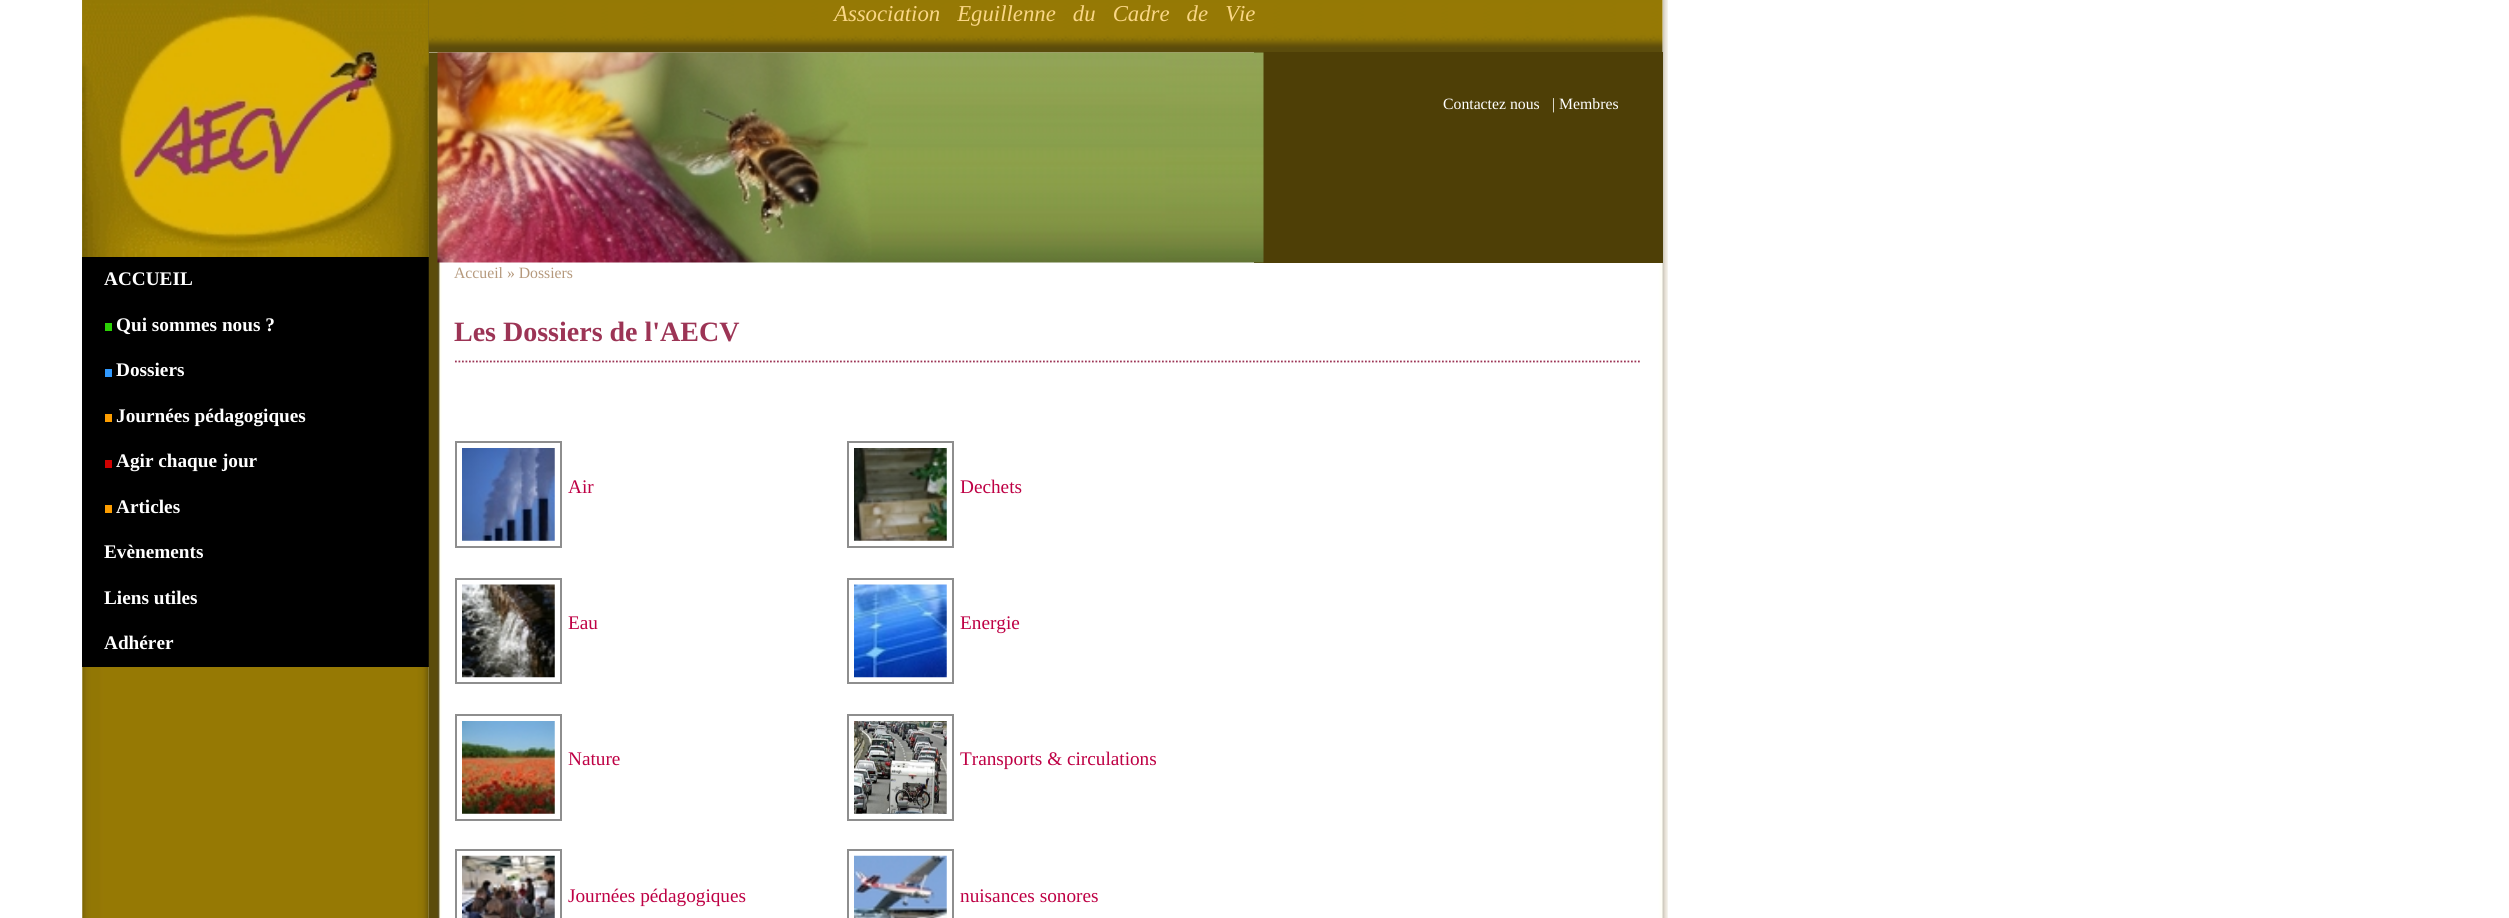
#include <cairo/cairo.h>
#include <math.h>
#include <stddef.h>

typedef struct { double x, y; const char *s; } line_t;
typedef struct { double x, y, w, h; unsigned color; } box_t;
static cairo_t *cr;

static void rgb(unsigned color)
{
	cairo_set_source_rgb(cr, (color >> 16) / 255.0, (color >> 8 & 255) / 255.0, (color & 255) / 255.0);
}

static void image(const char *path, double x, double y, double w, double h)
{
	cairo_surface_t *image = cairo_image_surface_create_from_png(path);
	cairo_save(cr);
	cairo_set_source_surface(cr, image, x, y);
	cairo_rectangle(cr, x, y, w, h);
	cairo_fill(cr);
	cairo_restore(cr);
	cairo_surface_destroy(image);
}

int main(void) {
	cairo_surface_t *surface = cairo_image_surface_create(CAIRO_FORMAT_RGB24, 2509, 918);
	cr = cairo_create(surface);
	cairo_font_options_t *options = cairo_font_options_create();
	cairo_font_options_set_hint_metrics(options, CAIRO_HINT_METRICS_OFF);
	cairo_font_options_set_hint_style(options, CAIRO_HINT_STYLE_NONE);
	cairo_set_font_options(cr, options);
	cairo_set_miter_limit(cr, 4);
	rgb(0xffffff);
	cairo_paint(cr);
	image("img/1.png", 82, 0, 347, 918);
	image("img/2.png", 82, 0, 347, 257);
	{
		static const box_t items[] = {
			{82, 257, 347, 410, 0x000000},
			{105, 323, 7, 8, 0x2bd105},
			{105, 369, 7, 8, 0x319aff},
			{105, 414, 7, 8, 0xfd9d00},
			{105, 460, 7, 8, 0xce0100},
			{105, 505, 7, 8, 0xfd9d00},
		};
		for (size_t i = 0; i < sizeof items / sizeof *items; i++) {
			rgb(items[i].color);
			cairo_rectangle(cr, items[i].x, items[i].y, items[i].w, items[i].h);
			cairo_fill(cr);
		}
	}
	image("img/3.png", 428, 0, 1240, 918);
	rgb(0xf3eee9);
	cairo_rectangle(cr, 429, 0, 1234, 53);
	cairo_fill(cr);
	image("img/4.png", 428, 0, 1235, 53);
	rgb(0x4e3f06);
	cairo_rectangle(cr, 1254, 52, 409, 211);
	cairo_fill(cr);
	image("img/5.png", 437, 52, 827, 211);
	cairo_new_path(cr);
	cairo_move_to(cr, 455, 361.5);
	cairo_line_to(cr, 1641.5, 361.5);
	rgb(0x9c3455);
	cairo_set_line_width(cr, 1.8);
	cairo_set_dash(cr, (double[]){1.75, 1.75}, 2, 0);
	cairo_stroke(cr);
	cairo_rectangle(cr, 456, 442, 105, 105);
	rgb(0x8e8e8e);
	cairo_set_line_width(cr, 2);
	cairo_set_dash(cr, NULL, 0, 0);
	cairo_stroke(cr);
	image("img/6.png", 462, 448, 93, 93);
	cairo_rectangle(cr, 456, 579, 105, 104);
	cairo_stroke(cr);
	image("img/7.png", 462, 584, 93, 94);
	cairo_rectangle(cr, 456, 715, 105, 105);
	cairo_stroke(cr);
	image("img/8.png", 462, 721, 93, 93);
	cairo_rectangle(cr, 456, 850, 105, 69);
	cairo_stroke(cr);
	image("img/9.png", 462, 855, 93, 63);
	cairo_rectangle(cr, 848, 442, 105, 105);
	cairo_stroke(cr);
	image("img/10.png", 854, 448, 93, 93);
	cairo_rectangle(cr, 848, 579, 105, 104);
	cairo_stroke(cr);
	image("img/11.png", 854, 584, 93, 94);
	cairo_rectangle(cr, 848, 715, 105, 105);
	cairo_stroke(cr);
	image("img/12.png", 854, 721, 93, 93);
	cairo_rectangle(cr, 848, 850, 105, 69);
	cairo_stroke(cr);
	image("img/13.png", 854, 855, 93, 63);
	cairo_select_font_face(cr, "Liberation Serif", CAIRO_FONT_SLANT_NORMAL, CAIRO_FONT_WEIGHT_BOLD);
	cairo_set_font_size(cr, 19.25);
	rgb(0xffffff);
	{
		static const line_t items[] = {
			{104, 285, "ACCUEIL"},
			{116, 331, "Qui sommes nous ?"},
			{116, 376, "Dossiers"},
			{116, 422, "Journées pédagogiques"},
			{116, 467, "Agir chaque jour"},
			{116, 513, "Articles"},
			{104, 558, "Evènements"},
			{104, 604, "Liens utiles"},
			{104, 649, "Adhérer"},
		};
		for (size_t i = 0; i < sizeof items / sizeof *items; i++) {
			cairo_move_to(cr, items[i].x, items[i].y);
			cairo_show_text(cr, items[i].s);
		}
	}
	cairo_select_font_face(cr, "Liberation Serif", CAIRO_FONT_SLANT_ITALIC, CAIRO_FONT_WEIGHT_NORMAL);
	cairo_set_font_size(cr, 22.75);
	rgb(0xfad786);
	cairo_move_to(cr, 834, 21);
	cairo_show_text(cr, "Association   Eguillenne   du   Cadre   de   Vie");
	cairo_select_font_face(cr, "Liberation Serif", CAIRO_FONT_SLANT_NORMAL, CAIRO_FONT_WEIGHT_NORMAL);
	cairo_set_font_size(cr, 15.75);
	rgb(0xffffff);
	cairo_move_to(cr, 1443, 109);
	cairo_show_text(cr, "Contactez nous");
	cairo_move_to(cr, 1552, 109);
	cairo_show_text(cr, "| Membres");
	rgb(0xb5997c);
	cairo_move_to(cr, 454, 278);
	cairo_show_text(cr, "Accueil » Dossiers");
	cairo_select_font_face(cr, "Liberation Serif", CAIRO_FONT_SLANT_NORMAL, CAIRO_FONT_WEIGHT_BOLD);
	cairo_set_font_size(cr, 28);
	rgb(0x9c3455);
	cairo_move_to(cr, 454, 341);
	cairo_show_text(cr, "Les Dossiers de l'AECV");
	cairo_select_font_face(cr, "Liberation Serif", CAIRO_FONT_SLANT_NORMAL, CAIRO_FONT_WEIGHT_NORMAL);
	cairo_set_font_size(cr, 19.25);
	rgb(0xbe0044);
	{
		static const line_t items[] = {
			{568, 493, "Air"},
			{568, 629, "Eau"},
			{568, 765, "Nature"},
			{568, 902, "Journées pédagogiques"},
			{960, 493, "Dechets"},
			{960, 629, "Energie"},
			{960, 765, "Transports & circulations"},
			{960, 902, "nuisances sonores"},
		};
		for (size_t i = 0; i < sizeof items / sizeof *items; i++) {
			cairo_move_to(cr, items[i].x, items[i].y);
			cairo_show_text(cr, items[i].s);
		}
	}
	cairo_surface_write_to_png(surface, "page.png");
	cairo_font_options_destroy(options);
	cairo_destroy(cr);
	cairo_surface_destroy(surface);
	return 0;
}
